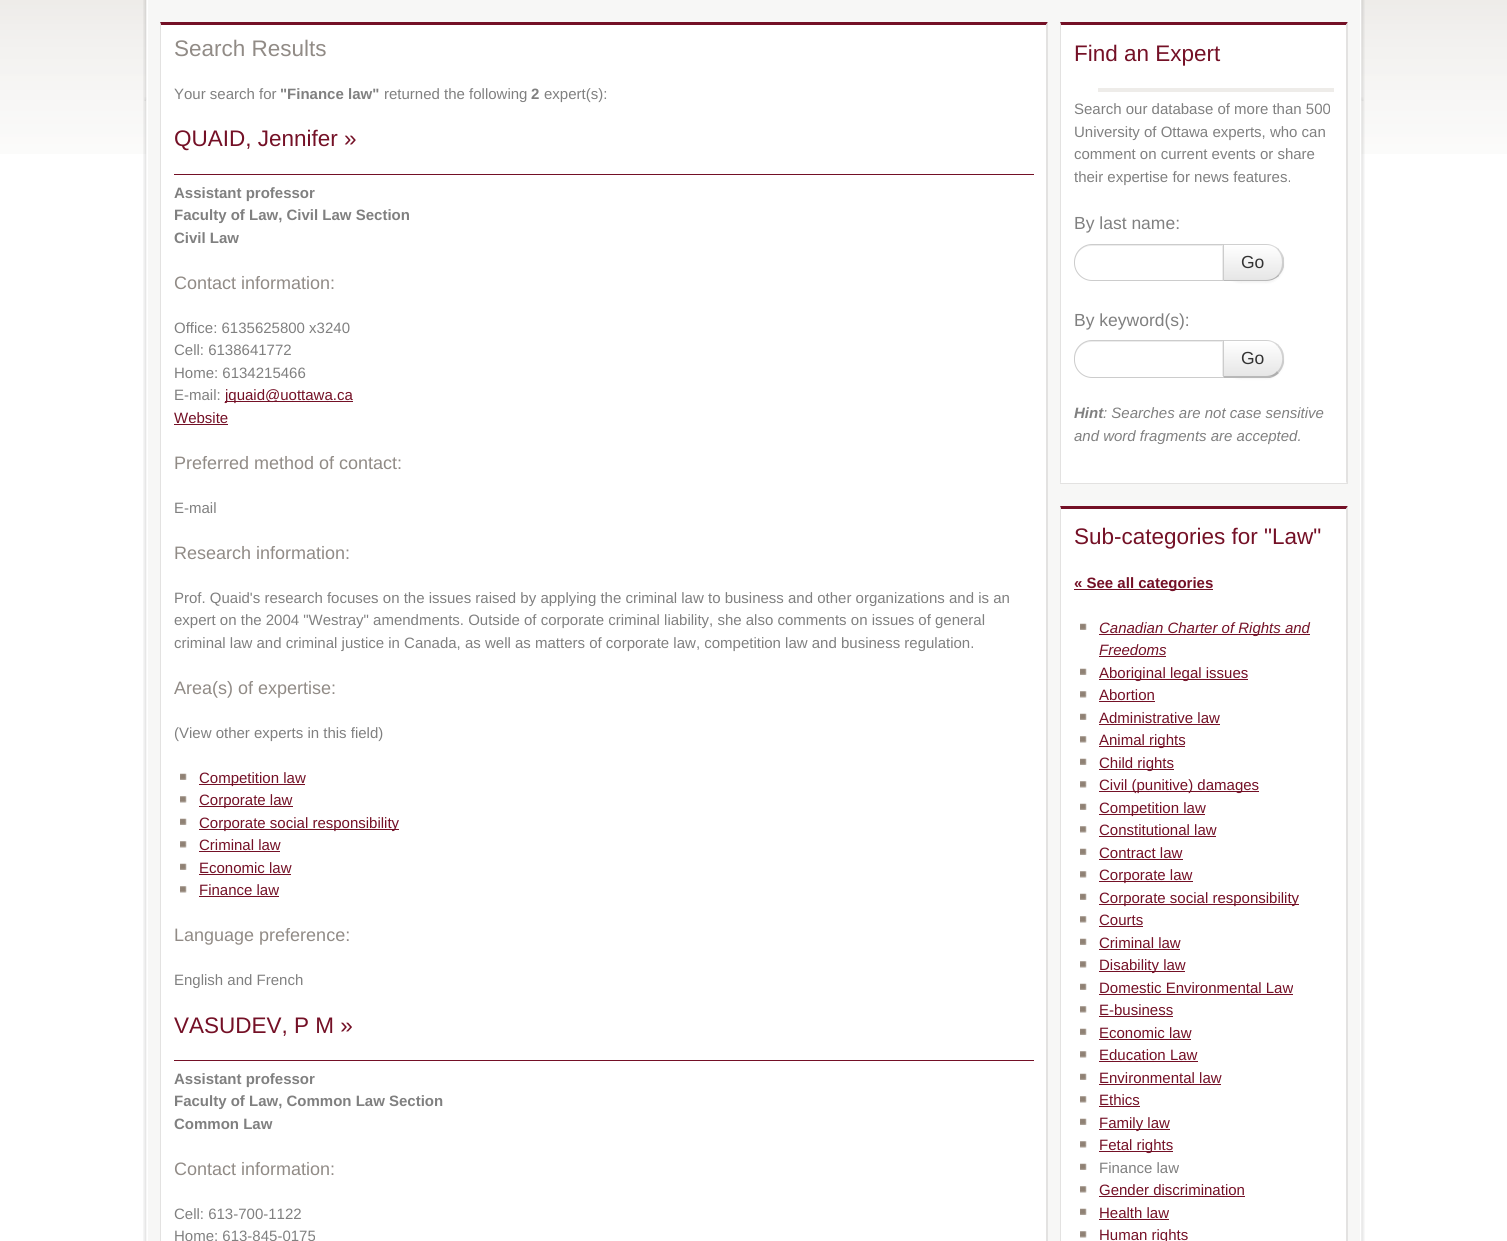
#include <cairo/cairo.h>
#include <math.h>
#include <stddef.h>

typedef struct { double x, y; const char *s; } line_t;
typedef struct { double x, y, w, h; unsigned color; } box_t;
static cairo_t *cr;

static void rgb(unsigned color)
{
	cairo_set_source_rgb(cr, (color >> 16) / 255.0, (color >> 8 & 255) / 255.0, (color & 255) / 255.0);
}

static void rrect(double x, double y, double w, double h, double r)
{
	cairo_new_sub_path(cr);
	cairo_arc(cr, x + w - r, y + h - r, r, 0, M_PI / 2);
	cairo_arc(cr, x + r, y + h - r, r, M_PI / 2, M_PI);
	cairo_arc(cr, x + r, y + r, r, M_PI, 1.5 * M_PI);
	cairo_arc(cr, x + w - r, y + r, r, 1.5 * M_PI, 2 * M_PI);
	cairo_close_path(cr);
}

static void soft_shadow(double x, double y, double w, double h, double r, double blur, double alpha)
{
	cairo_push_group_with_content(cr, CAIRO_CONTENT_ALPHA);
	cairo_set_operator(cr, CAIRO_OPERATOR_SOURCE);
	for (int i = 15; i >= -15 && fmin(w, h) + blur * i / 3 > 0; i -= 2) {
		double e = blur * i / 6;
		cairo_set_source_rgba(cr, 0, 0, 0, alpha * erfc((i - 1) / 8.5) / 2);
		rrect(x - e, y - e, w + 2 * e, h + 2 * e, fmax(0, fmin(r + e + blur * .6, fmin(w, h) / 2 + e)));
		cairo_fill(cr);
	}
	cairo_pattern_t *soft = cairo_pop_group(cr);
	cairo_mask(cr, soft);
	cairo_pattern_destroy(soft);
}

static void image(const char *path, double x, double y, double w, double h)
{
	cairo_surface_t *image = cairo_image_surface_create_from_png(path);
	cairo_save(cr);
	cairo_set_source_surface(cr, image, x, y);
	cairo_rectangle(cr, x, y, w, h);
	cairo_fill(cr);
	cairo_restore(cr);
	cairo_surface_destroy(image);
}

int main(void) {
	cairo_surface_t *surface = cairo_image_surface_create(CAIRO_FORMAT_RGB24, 1507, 1241);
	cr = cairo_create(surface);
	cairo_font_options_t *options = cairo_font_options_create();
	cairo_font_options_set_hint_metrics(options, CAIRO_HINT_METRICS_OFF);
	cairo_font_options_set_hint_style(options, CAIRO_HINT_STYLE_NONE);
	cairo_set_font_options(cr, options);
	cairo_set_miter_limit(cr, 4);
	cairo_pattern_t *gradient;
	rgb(0xffffff);
	cairo_paint(cr);
	image("img/1.png", 0, 0, 1507, 154);
	image("img/2.png", 144, 97, 1220, 4);
	image("img/3.png", 143, 0, 1222, 1241);
	rgb(0xf7f7f6);
	cairo_rectangle(cr, 148, 0, 1212, 1241);
	cairo_fill(cr);
	rgb(0xffffff);
	cairo_rectangle(cr, 161, 25, 885, 1216);
	cairo_fill(cr);
	rgb(0x741026);
	cairo_new_path(cr);
	cairo_move_to(cr, 160, 22);
	cairo_line_to(cr, 1048, 22);
	cairo_line_to(cr, 1046, 25);
	cairo_line_to(cr, 161, 25);
	cairo_close_path(cr);
	cairo_fill(cr);
	rgb(0xe3e2e1);
	cairo_new_path(cr);
	cairo_move_to(cr, 1048, 22);
	cairo_line_to(cr, 1048, 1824);
	cairo_line_to(cr, 1046, 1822);
	cairo_line_to(cr, 1046, 25);
	cairo_close_path(cr);
	cairo_fill(cr);
	cairo_new_path(cr);
	cairo_move_to(cr, 160, 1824);
	cairo_line_to(cr, 160, 22);
	cairo_line_to(cr, 161, 25);
	cairo_line_to(cr, 161, 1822);
	cairo_close_path(cr);
	cairo_fill(cr);
	{
		static const box_t items[] = {
			{174, 174, 860, 1, 0x741026},
			{225, 401, 128, 1, 0x741026},
			{174, 424, 54, 1, 0x741026},
		};
		for (size_t i = 0; i < sizeof items / sizeof *items; i++) {
			rgb(items[i].color);
			cairo_rectangle(cr, items[i].x, items[i].y, items[i].w, items[i].h);
			cairo_fill(cr);
		}
	}
	image("img/4.png", 180, 773, 7, 7);
	cairo_rectangle(cr, 199, 784, 106, 1);
	cairo_fill(cr);
	image("img/5.png", 180, 796, 7, 7);
	cairo_rectangle(cr, 199, 806, 94, 1);
	cairo_fill(cr);
	image("img/4.png", 180, 818, 7, 7);
	cairo_rectangle(cr, 199, 829, 200, 1);
	cairo_fill(cr);
	image("img/5.png", 180, 841, 7, 7);
	cairo_rectangle(cr, 199, 851, 81, 1);
	cairo_fill(cr);
	image("img/4.png", 180, 863, 7, 7);
	cairo_rectangle(cr, 199, 874, 92, 1);
	cairo_fill(cr);
	image("img/5.png", 180, 886, 7, 7);
	{
		static const box_t items[] = {
			{199, 896, 80, 1, 0x741026},
			{174, 1060, 860, 1, 0x741026},
			{1061, 25, 285, 458, 0xffffff},
		};
		for (size_t i = 0; i < sizeof items / sizeof *items; i++) {
			rgb(items[i].color);
			cairo_rectangle(cr, items[i].x, items[i].y, items[i].w, items[i].h);
			cairo_fill(cr);
		}
	}
	rgb(0x741026);
	cairo_new_path(cr);
	cairo_move_to(cr, 1060, 22);
	cairo_line_to(cr, 1348, 22);
	cairo_line_to(cr, 1346, 25);
	cairo_line_to(cr, 1061, 25);
	cairo_close_path(cr);
	cairo_fill(cr);
	rgb(0xe3e2e1);
	cairo_new_path(cr);
	cairo_move_to(cr, 1348, 22);
	cairo_line_to(cr, 1348, 484);
	cairo_line_to(cr, 1346, 482);
	cairo_line_to(cr, 1346, 25);
	cairo_close_path(cr);
	cairo_fill(cr);
	cairo_rectangle(cr, 1060, 483, 288, 1);
	cairo_fill(cr);
	cairo_new_path(cr);
	cairo_move_to(cr, 1060, 484);
	cairo_line_to(cr, 1060, 22);
	cairo_line_to(cr, 1061, 25);
	cairo_line_to(cr, 1061, 482);
	cairo_close_path(cr);
	cairo_fill(cr);
	rgb(0xeeece9);
	cairo_rectangle(cr, 1098, 88, 236, 4);
	cairo_fill(cr);
	rgb(0x000000);
	soft_shadow(1223, 245, 61, 38, 18, 1, 0.05);
	rgb(0xf5f5f5);
	cairo_new_path(cr);
	cairo_move_to(cr, 1223, 244);
	cairo_line_to(cr, 1266, 244);
	cairo_curve_to(cr, 1276, 244, 1284, 252, 1284, 262);
	cairo_line_to(cr, 1284, 263);
	cairo_curve_to(cr, 1284, 273, 1276, 281, 1266, 281);
	cairo_line_to(cr, 1223, 281);
	cairo_close_path(cr);
	cairo_fill(cr);
	cairo_save(cr);
	cairo_new_path(cr);
	cairo_move_to(cr, 1223, 244);
	cairo_line_to(cr, 1266, 244);
	cairo_curve_to(cr, 1276, 244, 1284, 252, 1284, 262);
	cairo_line_to(cr, 1284, 263);
	cairo_curve_to(cr, 1284, 273, 1276, 281, 1266, 281);
	cairo_line_to(cr, 1223, 281);
	cairo_close_path(cr);
	cairo_clip(cr);
	gradient = cairo_pattern_create_linear(1253, 245, 1253, 280);
	cairo_pattern_add_color_stop_rgba(gradient, 0, 1, 1, 1, 1);
	cairo_pattern_add_color_stop_rgba(gradient, 1, 0.902, 0.902, 0.902, 1);
	cairo_set_source(cr, gradient);
	cairo_pattern_destroy(gradient);
	cairo_rectangle(cr, 1224, 245, 60, 35);
	cairo_fill(cr);
	cairo_restore(cr);
	cairo_set_source_rgba(cr, 0, 0, 0, 0.15);
	cairo_new_path(cr);
	cairo_move_to(cr, 1224, 245);
	cairo_line_to(cr, 1266, 245);
	cairo_curve_to(cr, 1271, 245, 1275, 247, 1278, 250);
	cairo_line_to(cr, 1279, 249);
	cairo_curve_to(cr, 1275, 246, 1271, 244, 1266, 244);
	cairo_line_to(cr, 1223, 244);
	cairo_close_path(cr);
	cairo_fill(cr);
	cairo_new_path(cr);
	cairo_move_to(cr, 1278.5, 249);
	cairo_curve_to(cr, 1281, 251.5, 1283, 254.5, 1284, 258);
	cairo_line_to(cr, 1284, 267);
	cairo_curve_to(cr, 1283, 270.5, 1281, 273.5, 1278.5, 276);
	cairo_line_to(cr, 1277.5, 275);
	cairo_curve_to(cr, 1283.5, 269, 1283.5, 256, 1277.5, 250);
	cairo_close_path(cr);
	cairo_fill(cr);
	cairo_set_source_rgba(cr, 0, 0, 0, 0.25);
	cairo_new_path(cr);
	cairo_move_to(cr, 1279, 276);
	cairo_curve_to(cr, 1275, 279, 1271, 281, 1266, 281);
	cairo_line_to(cr, 1223, 281);
	cairo_line_to(cr, 1224, 280);
	cairo_line_to(cr, 1266, 280);
	cairo_curve_to(cr, 1271, 280, 1275, 278, 1278, 275);
	cairo_close_path(cr);
	cairo_fill(cr);
	rgb(0xffffff);
	cairo_new_path(cr);
	cairo_move_to(cr, 1092, 244);
	cairo_line_to(cr, 1224, 244);
	cairo_line_to(cr, 1224, 281);
	cairo_line_to(cr, 1092, 281);
	cairo_curve_to(cr, 1082, 281, 1074, 273, 1074, 263);
	cairo_line_to(cr, 1074, 262);
	cairo_curve_to(cr, 1074, 252, 1082, 244, 1092, 244);
	cairo_close_path(cr);
	cairo_fill(cr);
	rgb(0xececec);
	cairo_new_path(cr);
	cairo_move_to(cr, 1091, 246);
	cairo_line_to(cr, 1222, 246);
	cairo_line_to(cr, 1222, 280);
	cairo_line_to(cr, 1223, 280);
	cairo_line_to(cr, 1223, 245);
	cairo_line_to(cr, 1091, 245);
	cairo_curve_to(cr, 1082, 245, 1075, 252, 1075, 261);
	cairo_line_to(cr, 1075, 262);
	cairo_curve_to(cr, 1075, 254, 1082, 246, 1091, 246);
	cairo_close_path(cr);
	cairo_fill(cr);
	cairo_new_path(cr);
	cairo_move_to(cr, 1092, 244.5);
	cairo_line_to(cr, 1223.5, 244.5);
	cairo_line_to(cr, 1223.5, 280.5);
	cairo_line_to(cr, 1092, 280.5);
	cairo_curve_to(cr, 1082.5, 280.5, 1074.5, 272.5, 1074.5, 263);
	cairo_line_to(cr, 1074.5, 262);
	cairo_curve_to(cr, 1074.5, 252.5, 1082.5, 244.5, 1092, 244.5);
	cairo_close_path(cr);
	rgb(0xcccccc);
	cairo_set_line_width(cr, 1);
	cairo_stroke(cr);
	rgb(0x000000);
	soft_shadow(1223, 341, 61, 38, 18, 1, 0.05);
	rgb(0xf5f5f5);
	cairo_new_path(cr);
	cairo_move_to(cr, 1223, 340);
	cairo_line_to(cr, 1266, 340);
	cairo_curve_to(cr, 1276, 340, 1284, 348, 1284, 358);
	cairo_line_to(cr, 1284, 360);
	cairo_curve_to(cr, 1284, 370, 1276, 378, 1266, 378);
	cairo_line_to(cr, 1223, 378);
	cairo_close_path(cr);
	cairo_fill(cr);
	cairo_save(cr);
	cairo_new_path(cr);
	cairo_move_to(cr, 1223, 340);
	cairo_line_to(cr, 1266, 340);
	cairo_curve_to(cr, 1276, 340, 1284, 348, 1284, 358);
	cairo_line_to(cr, 1284, 360);
	cairo_curve_to(cr, 1284, 370, 1276, 378, 1266, 378);
	cairo_line_to(cr, 1223, 378);
	cairo_close_path(cr);
	cairo_clip(cr);
	gradient = cairo_pattern_create_linear(1253, 341, 1253, 376);
	cairo_pattern_add_color_stop_rgba(gradient, 0, 1, 1, 1, 1);
	cairo_pattern_add_color_stop_rgba(gradient, 1, 0.902, 0.902, 0.902, 1);
	cairo_set_source(cr, gradient);
	cairo_pattern_destroy(gradient);
	cairo_rectangle(cr, 1224, 341, 60, 35);
	cairo_fill(cr);
	cairo_restore(cr);
	cairo_set_source_rgba(cr, 0, 0, 0, 0.15);
	cairo_new_path(cr);
	cairo_move_to(cr, 1224, 341);
	cairo_line_to(cr, 1266, 341);
	cairo_curve_to(cr, 1271, 341, 1275, 343, 1277, 346);
	cairo_line_to(cr, 1279, 345);
	cairo_curve_to(cr, 1275, 342, 1271, 340, 1266, 340);
	cairo_line_to(cr, 1222, 340);
	cairo_line_to(cr, 1224, 342);
	cairo_close_path(cr);
	cairo_fill(cr);
	cairo_new_path(cr);
	cairo_move_to(cr, 1284, 363);
	cairo_curve_to(cr, 1283, 366.5, 1281.5, 370, 1279, 372.5);
	cairo_line_to(cr, 1277.5, 371);
	cairo_curve_to(cr, 1284, 364.5, 1283.5, 353, 1277.5, 346.5);
	cairo_line_to(cr, 1278.5, 345);
	cairo_curve_to(cr, 1284.5, 350.5, 1284, 356, 1284, 363);
	cairo_close_path(cr);
	cairo_fill(cr);
	cairo_set_source_rgba(cr, 0, 0, 0, 0.25);
	cairo_new_path(cr);
	cairo_move_to(cr, 1279, 373);
	cairo_curve_to(cr, 1277, 375, 1274, 377, 1270, 378);
	cairo_line_to(cr, 1222, 378);
	cairo_line_to(cr, 1224, 376);
	cairo_line_to(cr, 1266, 376);
	cairo_curve_to(cr, 1271, 376, 1275, 374, 1277, 371);
	cairo_close_path(cr);
	cairo_fill(cr);
	rgb(0xffffff);
	cairo_new_path(cr);
	cairo_move_to(cr, 1092, 340);
	cairo_line_to(cr, 1224, 340);
	cairo_line_to(cr, 1224, 378);
	cairo_line_to(cr, 1092, 378);
	cairo_curve_to(cr, 1082, 378, 1074, 370, 1074, 360);
	cairo_line_to(cr, 1074, 358);
	cairo_curve_to(cr, 1074, 348, 1082, 340, 1092, 340);
	cairo_close_path(cr);
	cairo_fill(cr);
	rgb(0xececec);
	cairo_new_path(cr);
	cairo_move_to(cr, 1091, 342);
	cairo_line_to(cr, 1222, 342);
	cairo_line_to(cr, 1222, 376);
	cairo_line_to(cr, 1223, 376);
	cairo_line_to(cr, 1223, 341);
	cairo_line_to(cr, 1091, 341);
	cairo_curve_to(cr, 1082, 341, 1075, 348, 1075, 357);
	cairo_line_to(cr, 1075, 359);
	cairo_curve_to(cr, 1075, 350, 1082, 342, 1091, 342);
	cairo_close_path(cr);
	cairo_fill(cr);
	cairo_new_path(cr);
	cairo_move_to(cr, 1092, 340.5);
	cairo_line_to(cr, 1223.5, 340.5);
	cairo_line_to(cr, 1223.5, 377.5);
	cairo_line_to(cr, 1092, 377.5);
	cairo_curve_to(cr, 1082.5, 377.5, 1074.5, 369.5, 1074.5, 360);
	cairo_line_to(cr, 1074.5, 358);
	cairo_curve_to(cr, 1074.5, 348.5, 1082.5, 340.5, 1092, 340.5);
	cairo_close_path(cr);
	rgb(0xcccccc);
	cairo_stroke(cr);
	rgb(0xffffff);
	cairo_rectangle(cr, 1061, 509, 285, 732);
	cairo_fill(cr);
	rgb(0x741026);
	cairo_new_path(cr);
	cairo_move_to(cr, 1060, 506);
	cairo_line_to(cr, 1348, 506);
	cairo_line_to(cr, 1346, 509);
	cairo_line_to(cr, 1061, 509);
	cairo_close_path(cr);
	cairo_fill(cr);
	rgb(0xe3e2e1);
	cairo_new_path(cr);
	cairo_move_to(cr, 1348, 506);
	cairo_line_to(cr, 1348, 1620);
	cairo_line_to(cr, 1346, 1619);
	cairo_line_to(cr, 1346, 509);
	cairo_close_path(cr);
	cairo_fill(cr);
	cairo_new_path(cr);
	cairo_move_to(cr, 1060, 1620);
	cairo_line_to(cr, 1060, 506);
	cairo_line_to(cr, 1061, 509);
	cairo_line_to(cr, 1061, 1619);
	cairo_close_path(cr);
	cairo_fill(cr);
	rgb(0x741026);
	cairo_rectangle(cr, 1074, 589, 139, 1);
	cairo_fill(cr);
	image("img/4.png", 1080, 623, 7, 7);
	cairo_rectangle(cr, 1099, 634, 211, 1);
	cairo_fill(cr);
	cairo_rectangle(cr, 1099, 656, 67, 1);
	cairo_fill(cr);
	image("img/4.png", 1080, 668, 7, 7);
	cairo_rectangle(cr, 1099, 679, 149, 1);
	cairo_fill(cr);
	image("img/5.png", 1080, 691, 7, 7);
	cairo_rectangle(cr, 1099, 701, 56, 1);
	cairo_fill(cr);
	image("img/4.png", 1080, 713, 7, 7);
	cairo_rectangle(cr, 1099, 724, 121, 1);
	cairo_fill(cr);
	image("img/5.png", 1080, 736, 7, 7);
	cairo_rectangle(cr, 1099, 746, 86, 1);
	cairo_fill(cr);
	image("img/4.png", 1080, 758, 7, 7);
	cairo_rectangle(cr, 1099, 769, 75, 1);
	cairo_fill(cr);
	image("img/6.png", 1080, 781, 7, 7);
	cairo_rectangle(cr, 1099, 791, 160, 1);
	cairo_fill(cr);
	image("img/4.png", 1080, 803, 7, 7);
	cairo_rectangle(cr, 1099, 814, 106, 1);
	cairo_fill(cr);
	image("img/5.png", 1080, 826, 7, 7);
	cairo_rectangle(cr, 1099, 836, 117, 1);
	cairo_fill(cr);
	image("img/4.png", 1080, 848, 7, 7);
	cairo_rectangle(cr, 1099, 859, 84, 1);
	cairo_fill(cr);
	image("img/5.png", 1080, 871, 7, 7);
	cairo_rectangle(cr, 1099, 881, 94, 1);
	cairo_fill(cr);
	image("img/4.png", 1080, 893, 7, 7);
	cairo_rectangle(cr, 1099, 904, 200, 1);
	cairo_fill(cr);
	image("img/5.png", 1080, 916, 7, 7);
	cairo_rectangle(cr, 1099, 926, 44, 1);
	cairo_fill(cr);
	image("img/4.png", 1080, 938, 7, 7);
	cairo_rectangle(cr, 1099, 949, 81, 1);
	cairo_fill(cr);
	image("img/5.png", 1080, 961, 7, 7);
	cairo_rectangle(cr, 1099, 971, 86, 1);
	cairo_fill(cr);
	image("img/4.png", 1080, 983, 7, 7);
	cairo_rectangle(cr, 1099, 994, 194, 1);
	cairo_fill(cr);
	image("img/5.png", 1080, 1006, 7, 7);
	cairo_rectangle(cr, 1099, 1016, 74, 1);
	cairo_fill(cr);
	image("img/4.png", 1080, 1028, 7, 7);
	cairo_rectangle(cr, 1099, 1039, 92, 1);
	cairo_fill(cr);
	image("img/5.png", 1080, 1051, 7, 7);
	cairo_rectangle(cr, 1099, 1061, 99, 1);
	cairo_fill(cr);
	image("img/4.png", 1080, 1073, 7, 7);
	cairo_rectangle(cr, 1099, 1084, 122, 1);
	cairo_fill(cr);
	image("img/5.png", 1080, 1096, 7, 7);
	cairo_rectangle(cr, 1099, 1106, 41, 1);
	cairo_fill(cr);
	image("img/4.png", 1080, 1118, 7, 7);
	cairo_rectangle(cr, 1099, 1129, 71, 1);
	cairo_fill(cr);
	image("img/5.png", 1080, 1141, 7, 7);
	cairo_rectangle(cr, 1099, 1151, 74, 1);
	cairo_fill(cr);
	image("img/4.png", 1080, 1163, 7, 7);
	image("img/5.png", 1080, 1186, 7, 7);
	cairo_rectangle(cr, 1099, 1196, 146, 1);
	cairo_fill(cr);
	image("img/4.png", 1080, 1208, 7, 7);
	cairo_rectangle(cr, 1099, 1219, 70, 1);
	cairo_fill(cr);
	image("img/5.png", 1080, 1231, 7, 7);
	cairo_select_font_face(cr, "Liberation Sans", CAIRO_FONT_SLANT_NORMAL, CAIRO_FONT_WEIGHT_NORMAL);
	cairo_set_font_size(cr, 22.5);
	rgb(0x918b86);
	cairo_move_to(cr, 174, 56);
	cairo_show_text(cr, "Search Results");
	cairo_set_font_size(cr, 15);
	rgb(0x808080);
	cairo_move_to(cr, 174, 99);
	cairo_show_text(cr, "Your search for");
	cairo_select_font_face(cr, "Liberation Sans", CAIRO_FONT_SLANT_NORMAL, CAIRO_FONT_WEIGHT_BOLD);
	cairo_move_to(cr, 280, 99);
	cairo_show_text(cr, "\"Finance law\"");
	cairo_select_font_face(cr, "Liberation Sans", CAIRO_FONT_SLANT_NORMAL, CAIRO_FONT_WEIGHT_NORMAL);
	cairo_move_to(cr, 384, 99);
	cairo_show_text(cr, "returned the following");
	cairo_select_font_face(cr, "Liberation Sans", CAIRO_FONT_SLANT_NORMAL, CAIRO_FONT_WEIGHT_BOLD);
	cairo_move_to(cr, 531, 99);
	cairo_show_text(cr, "2");
	cairo_select_font_face(cr, "Liberation Sans", CAIRO_FONT_SLANT_NORMAL, CAIRO_FONT_WEIGHT_NORMAL);
	cairo_move_to(cr, 544, 99);
	cairo_show_text(cr, "expert(s):");
	cairo_set_font_size(cr, 22.5);
	rgb(0x741026);
	cairo_move_to(cr, 174, 146);
	cairo_show_text(cr, "QUAID, Jennifer »");
	cairo_select_font_face(cr, "Liberation Sans", CAIRO_FONT_SLANT_NORMAL, CAIRO_FONT_WEIGHT_BOLD);
	cairo_set_font_size(cr, 15);
	rgb(0x808080);
	{
		static const line_t items[] = {
			{174, 198, "Assistant professor"},
			{174, 220, "Faculty of Law, Civil Law Section"},
			{174, 243, "Civil Law"},
		};
		for (size_t i = 0; i < sizeof items / sizeof *items; i++) {
			cairo_move_to(cr, items[i].x, items[i].y);
			cairo_show_text(cr, items[i].s);
		}
	}
	cairo_select_font_face(cr, "Liberation Sans", CAIRO_FONT_SLANT_NORMAL, CAIRO_FONT_WEIGHT_NORMAL);
	cairo_set_font_size(cr, 18);
	rgb(0x918b86);
	cairo_move_to(cr, 174, 289);
	cairo_show_text(cr, "Contact information:");
	cairo_set_font_size(cr, 15);
	rgb(0x808080);
	{
		static const line_t items[] = {
			{174, 333, "Office: 6135625800 x3240"},
			{174, 355, "Cell: 6138641772"},
			{174, 378, "Home: 6134215466"},
			{174, 400, "E-mail:"},
		};
		for (size_t i = 0; i < sizeof items / sizeof *items; i++) {
			cairo_move_to(cr, items[i].x, items[i].y);
			cairo_show_text(cr, items[i].s);
		}
	}
	rgb(0x741026);
	cairo_move_to(cr, 225, 400);
	cairo_show_text(cr, "jquaid@uottawa.ca");
	cairo_move_to(cr, 174, 423);
	cairo_show_text(cr, "Website");
	cairo_set_font_size(cr, 18);
	rgb(0x918b86);
	cairo_move_to(cr, 174, 469);
	cairo_show_text(cr, "Preferred method of contact:");
	cairo_set_font_size(cr, 15);
	rgb(0x808080);
	cairo_move_to(cr, 174, 513);
	cairo_show_text(cr, "E-mail");
	cairo_set_font_size(cr, 18);
	rgb(0x918b86);
	cairo_move_to(cr, 174, 559);
	cairo_show_text(cr, "Research information:");
	cairo_set_font_size(cr, 15);
	rgb(0x808080);
	{
		static const line_t items[] = {
			{174, 603, "Prof. Quaid's research focuses on the issues raised by applying the criminal law to business and other organizations and is an"},
			{174, 625, "expert on the 2004 \"Westray\" amendments. Outside of corporate criminal liability, she also comments on issues of general"},
			{174, 648, "criminal law and criminal justice in Canada, as well as matters of corporate law, competition law and business regulation."},
		};
		for (size_t i = 0; i < sizeof items / sizeof *items; i++) {
			cairo_move_to(cr, items[i].x, items[i].y);
			cairo_show_text(cr, items[i].s);
		}
	}
	cairo_set_font_size(cr, 18);
	rgb(0x918b86);
	cairo_move_to(cr, 174, 694);
	cairo_show_text(cr, "Area(s) of expertise:");
	cairo_set_font_size(cr, 15);
	rgb(0x808080);
	cairo_move_to(cr, 174, 738);
	cairo_show_text(cr, "(View other experts in this field)");
	rgb(0x741026);
	{
		static const line_t items[] = {
			{199, 783, "Competition law"},
			{199, 805, "Corporate law"},
			{199, 828, "Corporate social responsibility"},
			{199, 850, "Criminal law"},
			{199, 873, "Economic law"},
			{199, 895, "Finance law"},
		};
		for (size_t i = 0; i < sizeof items / sizeof *items; i++) {
			cairo_move_to(cr, items[i].x, items[i].y);
			cairo_show_text(cr, items[i].s);
		}
	}
	cairo_set_font_size(cr, 18);
	rgb(0x918b86);
	cairo_move_to(cr, 174, 941);
	cairo_show_text(cr, "Language preference:");
	cairo_set_font_size(cr, 15);
	rgb(0x808080);
	cairo_move_to(cr, 174, 985);
	cairo_show_text(cr, "English and French");
	cairo_set_font_size(cr, 22.5);
	rgb(0x741026);
	cairo_move_to(cr, 174, 1033);
	cairo_show_text(cr, "VASUDEV, P M »");
	cairo_select_font_face(cr, "Liberation Sans", CAIRO_FONT_SLANT_NORMAL, CAIRO_FONT_WEIGHT_BOLD);
	cairo_set_font_size(cr, 15);
	rgb(0x808080);
	{
		static const line_t items[] = {
			{174, 1084, "Assistant professor"},
			{174, 1106, "Faculty of Law, Common Law Section"},
			{174, 1129, "Common Law"},
		};
		for (size_t i = 0; i < sizeof items / sizeof *items; i++) {
			cairo_move_to(cr, items[i].x, items[i].y);
			cairo_show_text(cr, items[i].s);
		}
	}
	cairo_select_font_face(cr, "Liberation Sans", CAIRO_FONT_SLANT_NORMAL, CAIRO_FONT_WEIGHT_NORMAL);
	cairo_set_font_size(cr, 18);
	rgb(0x918b86);
	cairo_move_to(cr, 174, 1175);
	cairo_show_text(cr, "Contact information:");
	cairo_set_font_size(cr, 15);
	rgb(0x808080);
	cairo_move_to(cr, 174, 1219);
	cairo_show_text(cr, "Cell: 613-700-1122");
	cairo_move_to(cr, 174, 1241);
	cairo_show_text(cr, "Home: 613-845-0175");
	cairo_set_font_size(cr, 22.5);
	rgb(0x741026);
	cairo_move_to(cr, 1074, 61);
	cairo_show_text(cr, "Find an Expert");
	cairo_set_font_size(cr, 15);
	rgb(0x808080);
	{
		static const line_t items[] = {
			{1074, 114, "Search our database of more than 500"},
			{1074, 137, "University of Ottawa experts, who can"},
			{1074, 159, "comment on current events or share"},
			{1074, 182, "their expertise for news features."},
		};
		for (size_t i = 0; i < sizeof items / sizeof *items; i++) {
			cairo_move_to(cr, items[i].x, items[i].y);
			cairo_show_text(cr, items[i].s);
		}
	}
	cairo_set_font_size(cr, 17.5);
	cairo_move_to(cr, 1074, 229);
	cairo_show_text(cr, "By last name:");
	rgb(0x333333);
	cairo_move_to(cr, 1241, 268);
	cairo_show_text(cr, "Go");
	rgb(0x808080);
	cairo_move_to(cr, 1074, 326);
	cairo_show_text(cr, "By keyword(s):");
	rgb(0x333333);
	cairo_move_to(cr, 1241, 364);
	cairo_show_text(cr, "Go");
	cairo_select_font_face(cr, "Liberation Sans", CAIRO_FONT_SLANT_ITALIC, CAIRO_FONT_WEIGHT_BOLD);
	cairo_set_font_size(cr, 15);
	rgb(0x808080);
	cairo_move_to(cr, 1074, 418);
	cairo_show_text(cr, "Hint");
	cairo_select_font_face(cr, "Liberation Sans", CAIRO_FONT_SLANT_ITALIC, CAIRO_FONT_WEIGHT_NORMAL);
	cairo_move_to(cr, 1103, 418);
	cairo_show_text(cr, ": Searches are not case sensitive");
	cairo_move_to(cr, 1074, 441);
	cairo_show_text(cr, "and word fragments are accepted.");
	cairo_select_font_face(cr, "Liberation Sans", CAIRO_FONT_SLANT_NORMAL, CAIRO_FONT_WEIGHT_NORMAL);
	cairo_set_font_size(cr, 22.5);
	rgb(0x741026);
	cairo_move_to(cr, 1074, 544);
	cairo_show_text(cr, "Sub-categories for \"Law\"");
	cairo_select_font_face(cr, "Liberation Sans", CAIRO_FONT_SLANT_NORMAL, CAIRO_FONT_WEIGHT_BOLD);
	cairo_set_font_size(cr, 15);
	cairo_move_to(cr, 1074, 588);
	cairo_show_text(cr, "« See all categories");
	cairo_select_font_face(cr, "Liberation Sans", CAIRO_FONT_SLANT_ITALIC, CAIRO_FONT_WEIGHT_NORMAL);
	cairo_move_to(cr, 1099, 633);
	cairo_show_text(cr, "Canadian Charter of Rights and");
	cairo_move_to(cr, 1099, 655);
	cairo_show_text(cr, "Freedoms");
	cairo_select_font_face(cr, "Liberation Sans", CAIRO_FONT_SLANT_NORMAL, CAIRO_FONT_WEIGHT_NORMAL);
	{
		static const line_t items[] = {
			{1099, 678, "Aboriginal legal issues"},
			{1099, 700, "Abortion"},
			{1099, 723, "Administrative law"},
			{1099, 745, "Animal rights"},
			{1099, 768, "Child rights"},
			{1099, 790, "Civil (punitive) damages"},
			{1099, 813, "Competition law"},
			{1099, 835, "Constitutional law"},
			{1099, 858, "Contract law"},
			{1099, 880, "Corporate law"},
			{1099, 903, "Corporate social responsibility"},
			{1099, 925, "Courts"},
			{1099, 948, "Criminal law"},
			{1099, 970, "Disability law"},
			{1099, 993, "Domestic Environmental Law"},
			{1099, 1015, "E-business"},
			{1099, 1038, "Economic law"},
			{1099, 1060, "Education Law"},
			{1099, 1083, "Environmental law"},
			{1099, 1105, "Ethics"},
			{1099, 1128, "Family law"},
			{1099, 1150, "Fetal rights"},
		};
		for (size_t i = 0; i < sizeof items / sizeof *items; i++) {
			cairo_move_to(cr, items[i].x, items[i].y);
			cairo_show_text(cr, items[i].s);
		}
	}
	rgb(0x808080);
	cairo_move_to(cr, 1099, 1173);
	cairo_show_text(cr, "Finance law");
	rgb(0x741026);
	{
		static const line_t items[] = {
			{1099, 1195, "Gender discrimination"},
			{1099, 1218, "Health law"},
			{1099, 1240, "Human rights"},
		};
		for (size_t i = 0; i < sizeof items / sizeof *items; i++) {
			cairo_move_to(cr, items[i].x, items[i].y);
			cairo_show_text(cr, items[i].s);
		}
	}
	cairo_surface_write_to_png(surface, "page.png");
	cairo_font_options_destroy(options);
	cairo_destroy(cr);
	cairo_surface_destroy(surface);
	return 0;
}
